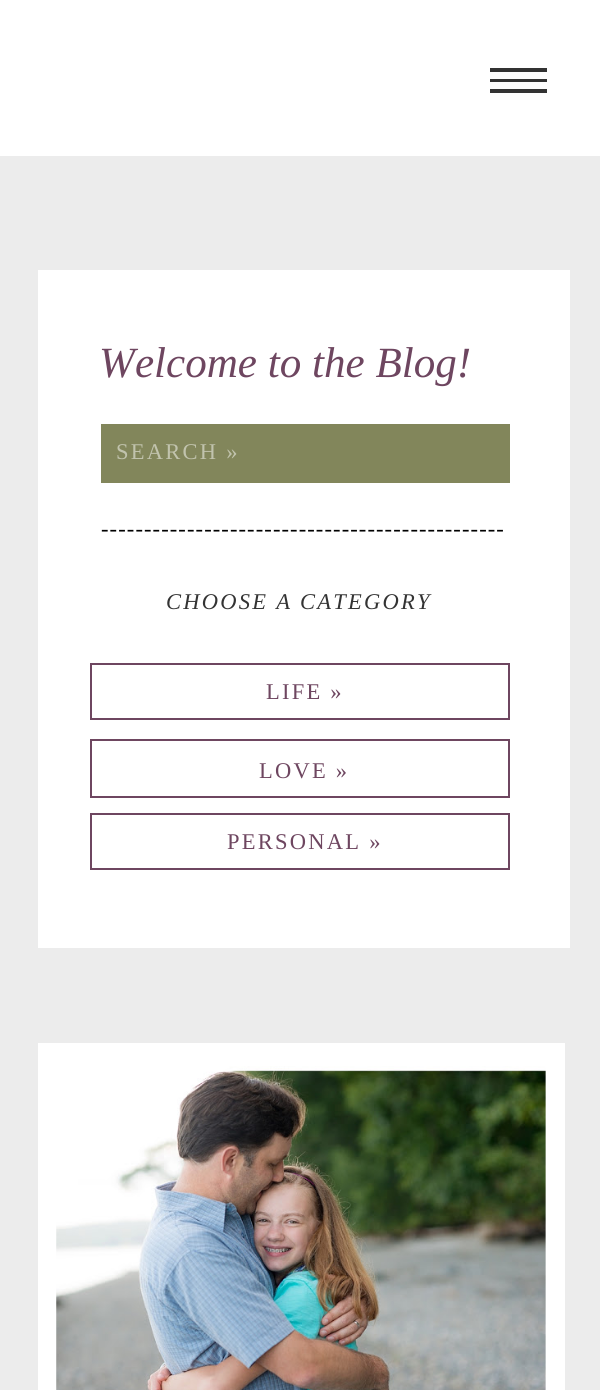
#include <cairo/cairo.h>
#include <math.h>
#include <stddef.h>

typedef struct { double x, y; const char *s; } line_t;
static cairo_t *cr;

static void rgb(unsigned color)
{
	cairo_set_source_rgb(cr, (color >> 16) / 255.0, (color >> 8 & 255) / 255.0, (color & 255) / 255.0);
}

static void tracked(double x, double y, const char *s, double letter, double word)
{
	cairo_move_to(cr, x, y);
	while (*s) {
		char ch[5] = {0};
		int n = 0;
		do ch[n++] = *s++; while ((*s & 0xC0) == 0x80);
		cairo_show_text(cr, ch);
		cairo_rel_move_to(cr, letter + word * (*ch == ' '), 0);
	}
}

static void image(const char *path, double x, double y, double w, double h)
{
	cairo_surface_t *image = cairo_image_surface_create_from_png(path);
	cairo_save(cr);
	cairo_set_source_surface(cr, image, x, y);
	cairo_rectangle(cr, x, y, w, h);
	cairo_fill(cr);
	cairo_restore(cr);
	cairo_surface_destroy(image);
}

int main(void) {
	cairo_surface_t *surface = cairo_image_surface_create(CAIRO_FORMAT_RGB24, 600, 1390);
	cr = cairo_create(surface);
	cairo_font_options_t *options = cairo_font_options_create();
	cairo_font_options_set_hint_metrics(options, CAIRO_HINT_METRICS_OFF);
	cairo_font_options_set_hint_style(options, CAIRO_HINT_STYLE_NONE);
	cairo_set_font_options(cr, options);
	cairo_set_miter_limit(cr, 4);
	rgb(0xececec);
	cairo_paint(cr);
	rgb(0xffffff);
	cairo_rectangle(cr, 0, 0, 600, 156);
	cairo_fill(cr);
	rgb(0x333333);
	cairo_new_path(cr);
	cairo_move_to(cr, 490, 68);
	cairo_line_to(cr, 547, 68);
	cairo_line_to(cr, 547, 72);
	cairo_line_to(cr, 490, 72);
	cairo_close_path(cr);
	cairo_move_to(cr, 490, 79);
	cairo_line_to(cr, 547, 79);
	cairo_line_to(cr, 547, 82);
	cairo_line_to(cr, 490, 82);
	cairo_close_path(cr);
	cairo_move_to(cr, 490, 89);
	cairo_line_to(cr, 547, 89);
	cairo_line_to(cr, 547, 93);
	cairo_line_to(cr, 490, 93);
	cairo_close_path(cr);
	cairo_fill(cr);
	rgb(0xffffff);
	cairo_rectangle(cr, 38, 270, 532, 678);
	cairo_fill(cr);
	rgb(0x82865b);
	cairo_rectangle(cr, 101, 424, 409, 59);
	cairo_fill(cr);
	cairo_rectangle(cr, 91, 664, 418, 55);
	rgb(0x6e4660);
	cairo_stroke(cr);
	cairo_rectangle(cr, 91, 740, 418, 57);
	cairo_stroke(cr);
	cairo_rectangle(cr, 91, 814, 418, 55);
	cairo_stroke(cr);
	rgb(0xffffff);
	cairo_rectangle(cr, 38, 1043, 527, 347);
	cairo_fill(cr);
	image("img/1.png", 56, 1066, 490, 324);
	cairo_select_font_face(cr, "Liberation Serif", CAIRO_FONT_SLANT_ITALIC, CAIRO_FONT_WEIGHT_NORMAL);
	cairo_set_font_size(cr, 43.1);
	rgb(0x6e4660);
	cairo_move_to(cr, 99, 377);
	cairo_show_text(cr, "Welcome to the Blog!");
	cairo_select_font_face(cr, "Liberation Serif", CAIRO_FONT_SLANT_NORMAL, CAIRO_FONT_WEIGHT_NORMAL);
	cairo_set_font_size(cr, 22.5);
	rgb(0xc1c3ad);
	tracked(116, 459, "SEARCH »", 2.25, 0);
	rgb(0x000000);
	tracked(101, 536, "-----------------------------------------------", 1.1, 0);
	cairo_select_font_face(cr, "Liberation Serif", CAIRO_FONT_SLANT_ITALIC, CAIRO_FONT_WEIGHT_NORMAL);
	rgb(0x333333);
	tracked(166, 609, "CHOOSE A CATEGORY", 2.25, 0);
	cairo_select_font_face(cr, "Liberation Serif", CAIRO_FONT_SLANT_NORMAL, CAIRO_FONT_WEIGHT_NORMAL);
	rgb(0x6e4660);
	{
		static const line_t items[] = {
			{266, 699, "LIFE »"},
			{259, 778, "LOVE »"},
			{227, 849, "PERSONAL »"},
		};
		for (size_t i = 0; i < sizeof items / sizeof *items; i++) {
			tracked(items[i].x, items[i].y, items[i].s, 2.25, 0);
		}
	}
	cairo_surface_write_to_png(surface, "page.png");
	cairo_font_options_destroy(options);
	cairo_destroy(cr);
	cairo_surface_destroy(surface);
	return 0;
}
